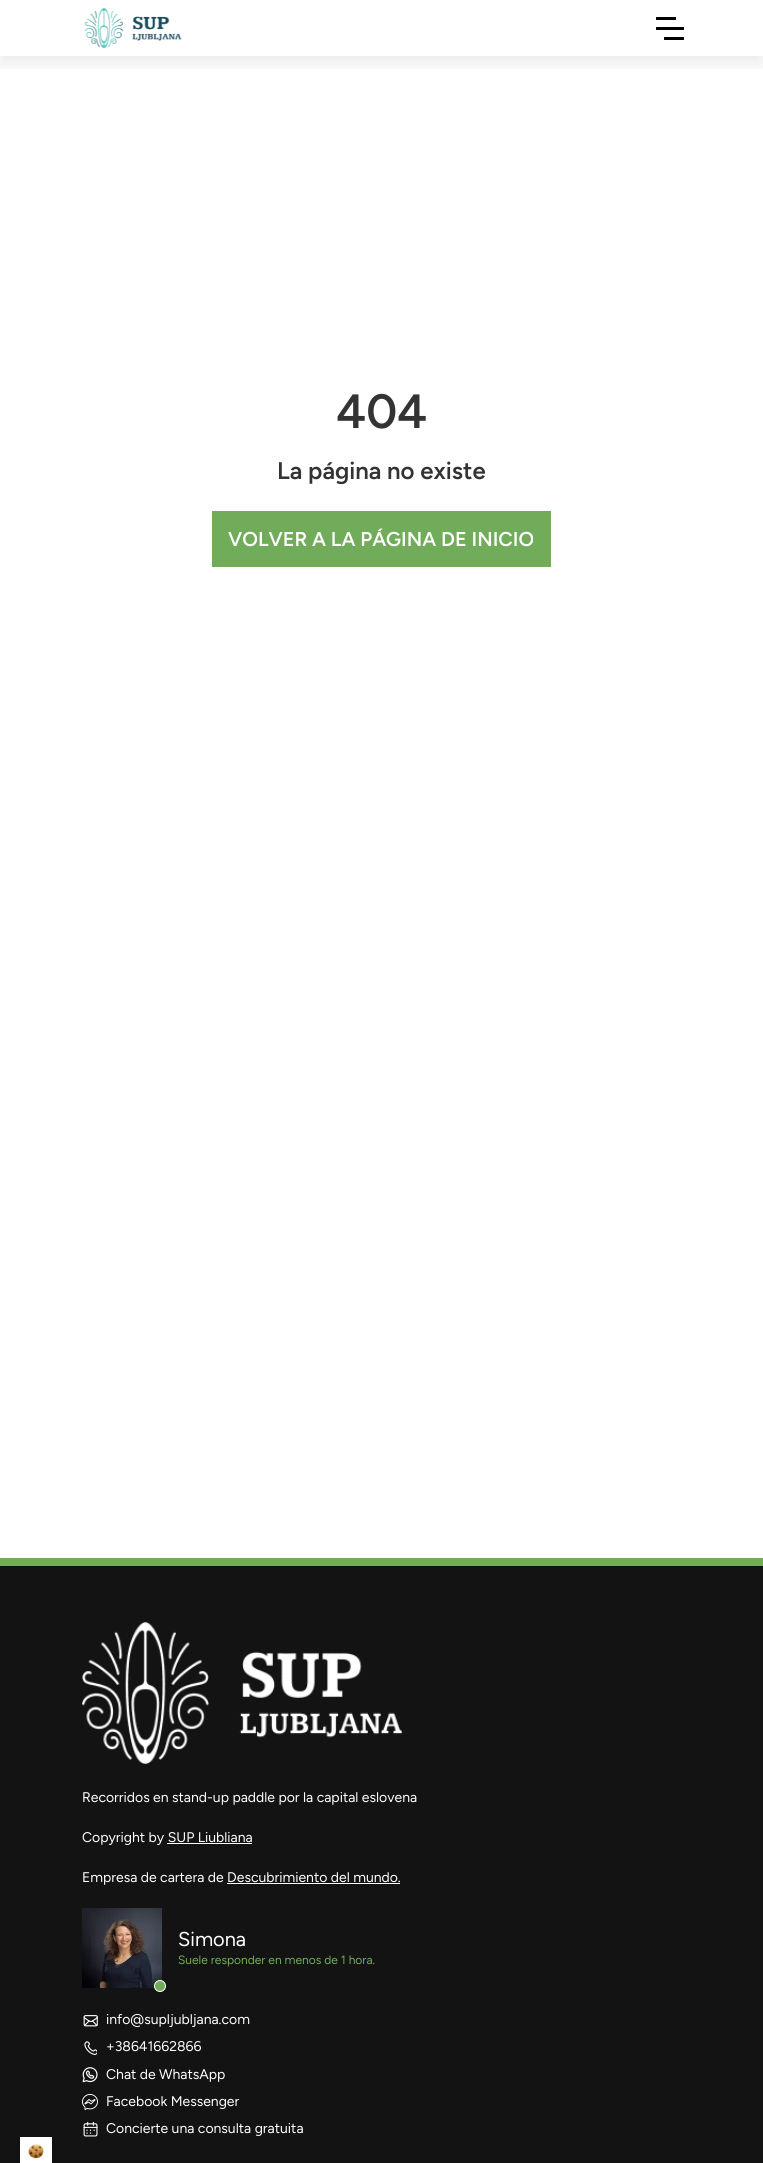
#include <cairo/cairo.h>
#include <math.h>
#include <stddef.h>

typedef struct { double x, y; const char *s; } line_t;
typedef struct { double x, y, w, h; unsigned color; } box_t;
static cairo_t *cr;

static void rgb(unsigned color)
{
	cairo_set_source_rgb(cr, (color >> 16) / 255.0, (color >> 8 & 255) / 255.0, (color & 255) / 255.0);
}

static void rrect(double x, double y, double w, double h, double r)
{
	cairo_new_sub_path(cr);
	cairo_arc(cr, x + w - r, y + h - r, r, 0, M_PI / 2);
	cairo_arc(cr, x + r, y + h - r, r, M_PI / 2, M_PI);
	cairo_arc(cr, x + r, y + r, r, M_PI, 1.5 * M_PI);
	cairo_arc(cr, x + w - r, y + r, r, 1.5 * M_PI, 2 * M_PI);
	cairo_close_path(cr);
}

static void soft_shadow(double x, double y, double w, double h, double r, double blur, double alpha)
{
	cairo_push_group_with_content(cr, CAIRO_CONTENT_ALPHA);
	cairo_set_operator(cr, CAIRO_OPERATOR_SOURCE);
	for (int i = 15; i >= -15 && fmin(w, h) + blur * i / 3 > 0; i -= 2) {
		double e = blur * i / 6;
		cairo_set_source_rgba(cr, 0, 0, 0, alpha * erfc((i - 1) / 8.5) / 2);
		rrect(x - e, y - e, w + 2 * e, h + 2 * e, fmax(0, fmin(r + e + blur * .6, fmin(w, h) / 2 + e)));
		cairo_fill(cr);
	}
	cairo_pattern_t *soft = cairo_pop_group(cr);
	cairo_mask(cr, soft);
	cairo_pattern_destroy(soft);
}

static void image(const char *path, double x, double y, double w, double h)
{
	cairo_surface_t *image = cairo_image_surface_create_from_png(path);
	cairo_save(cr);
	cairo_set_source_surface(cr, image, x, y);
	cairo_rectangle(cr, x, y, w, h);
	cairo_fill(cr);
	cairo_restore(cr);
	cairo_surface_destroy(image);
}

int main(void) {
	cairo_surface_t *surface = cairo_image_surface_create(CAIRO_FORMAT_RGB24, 763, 2163);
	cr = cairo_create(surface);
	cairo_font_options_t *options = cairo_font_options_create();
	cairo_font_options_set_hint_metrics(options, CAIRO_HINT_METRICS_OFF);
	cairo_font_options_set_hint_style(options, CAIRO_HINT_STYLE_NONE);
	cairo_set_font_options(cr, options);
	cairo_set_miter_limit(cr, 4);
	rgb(0xffffff);
	cairo_paint(cr);
	cairo_save(cr);
	cairo_rectangle(cr, 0, 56, 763, 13);
	cairo_clip(cr);
	rgb(0x000000);
	soft_shadow(0, 8, 763, 56, 0, 8, 0.08);
	cairo_restore(cr);
	image("img/1.png", 84, 8, 98, 40);
	rgb(0x000000);
	rrect(656, 17, 20, 3, 0.5);
	cairo_fill(cr);
	rrect(664, 37, 20, 3, 0.5);
	cairo_fill(cr);
	rrect(656, 27, 28, 3, 0.5);
	cairo_fill(cr);
	{
		static const box_t items[] = {
			{212, 511, 339, 56, 0x70ac5a},
			{0, 1566, 763, 597, 0x131313},
			{0, 1558, 763, 8, 0x70ac5a},
		};
		for (size_t i = 0; i < sizeof items / sizeof *items; i++) {
			rgb(items[i].color);
			cairo_rectangle(cr, items[i].x, items[i].y, items[i].w, items[i].h);
			cairo_fill(cr);
		}
	}
	image("img/2.png", 82, 1622, 320, 142);
	rgb(0xffffff);
	cairo_rectangle(cr, 167, 1843, 85, 1);
	cairo_fill(cr);
	cairo_rectangle(cr, 227, 1883, 173, 1);
	cairo_fill(cr);
	image("img/3.png", 82, 1908, 80, 80);
	rgb(0x70ac5a);
	cairo_arc(cr, 160, 1986, 5.5, 0, 2 * M_PI);
	cairo_fill_preserve(cr);
	rgb(0xffffff);
	cairo_set_line_width(cr, 1);
	cairo_stroke(cr);
	image("img/4.png", 83, 2015, 15, 12);
	image("img/5.png", 84, 2041, 13, 14);
	image("img/6.png", 82, 2067, 16, 16);
	image("img/7.png", 82, 2094, 16, 16);
	image("img/8.png", 83, 2121, 15, 16);
	cairo_rectangle(cr, 20, 2137, 32, 26);
	cairo_fill(cr);
	image("img/9.png", 28, 2143, 16, 16);
	cairo_select_font_face(cr, "Figtree SemiBold", CAIRO_FONT_SLANT_NORMAL, CAIRO_FONT_WEIGHT_NORMAL);
	cairo_set_font_size(cr, 48);
	rgb(0x333333);
	cairo_move_to(cr, 336, 428);
	cairo_show_text(cr, "404");
	cairo_set_font_size(cr, 24);
	cairo_move_to(cr, 277, 479);
	cairo_show_text(cr, "La página no existe");
	cairo_set_font_size(cr, 20);
	rgb(0xffffff);
	cairo_move_to(cr, 228, 546);
	cairo_show_text(cr, "VOLVER A LA PÁGINA DE INICIO");
	cairo_select_font_face(cr, "Figtree", CAIRO_FONT_SLANT_NORMAL, CAIRO_FONT_WEIGHT_NORMAL);
	cairo_set_font_size(cr, 14);
	{
		static const line_t items[] = {
			{82, 1802, "Recorridos en stand-up paddle por la capital eslovena"},
			{82, 1842, "Copyright by SUP Liubliana"},
			{82, 1882, "Empresa de cartera de Descubrimiento del mundo."},
		};
		for (size_t i = 0; i < sizeof items / sizeof *items; i++) {
			cairo_move_to(cr, items[i].x, items[i].y);
			cairo_show_text(cr, items[i].s);
		}
	}
	cairo_set_font_size(cr, 20);
	cairo_move_to(cr, 178, 1946);
	cairo_show_text(cr, "Simona");
	cairo_set_font_size(cr, 12);
	rgb(0x70ac5a);
	cairo_move_to(cr, 178, 1964);
	cairo_show_text(cr, "Suele responder en menos de 1 hora.");
	cairo_set_font_size(cr, 14);
	rgb(0xffffff);
	{
		static const line_t items[] = {
			{106, 2024, "info@supljubljana.com"},
			{106, 2051, "+38641662866"},
			{106, 2079, "Chat de WhatsApp"},
			{106, 2106, "Facebook Messenger"},
			{106, 2133, "Concierte una consulta gratuita"},
		};
		for (size_t i = 0; i < sizeof items / sizeof *items; i++) {
			cairo_move_to(cr, items[i].x, items[i].y);
			cairo_show_text(cr, items[i].s);
		}
	}
	cairo_surface_write_to_png(surface, "page.png");
	cairo_font_options_destroy(options);
	cairo_destroy(cr);
	cairo_surface_destroy(surface);
	return 0;
}
